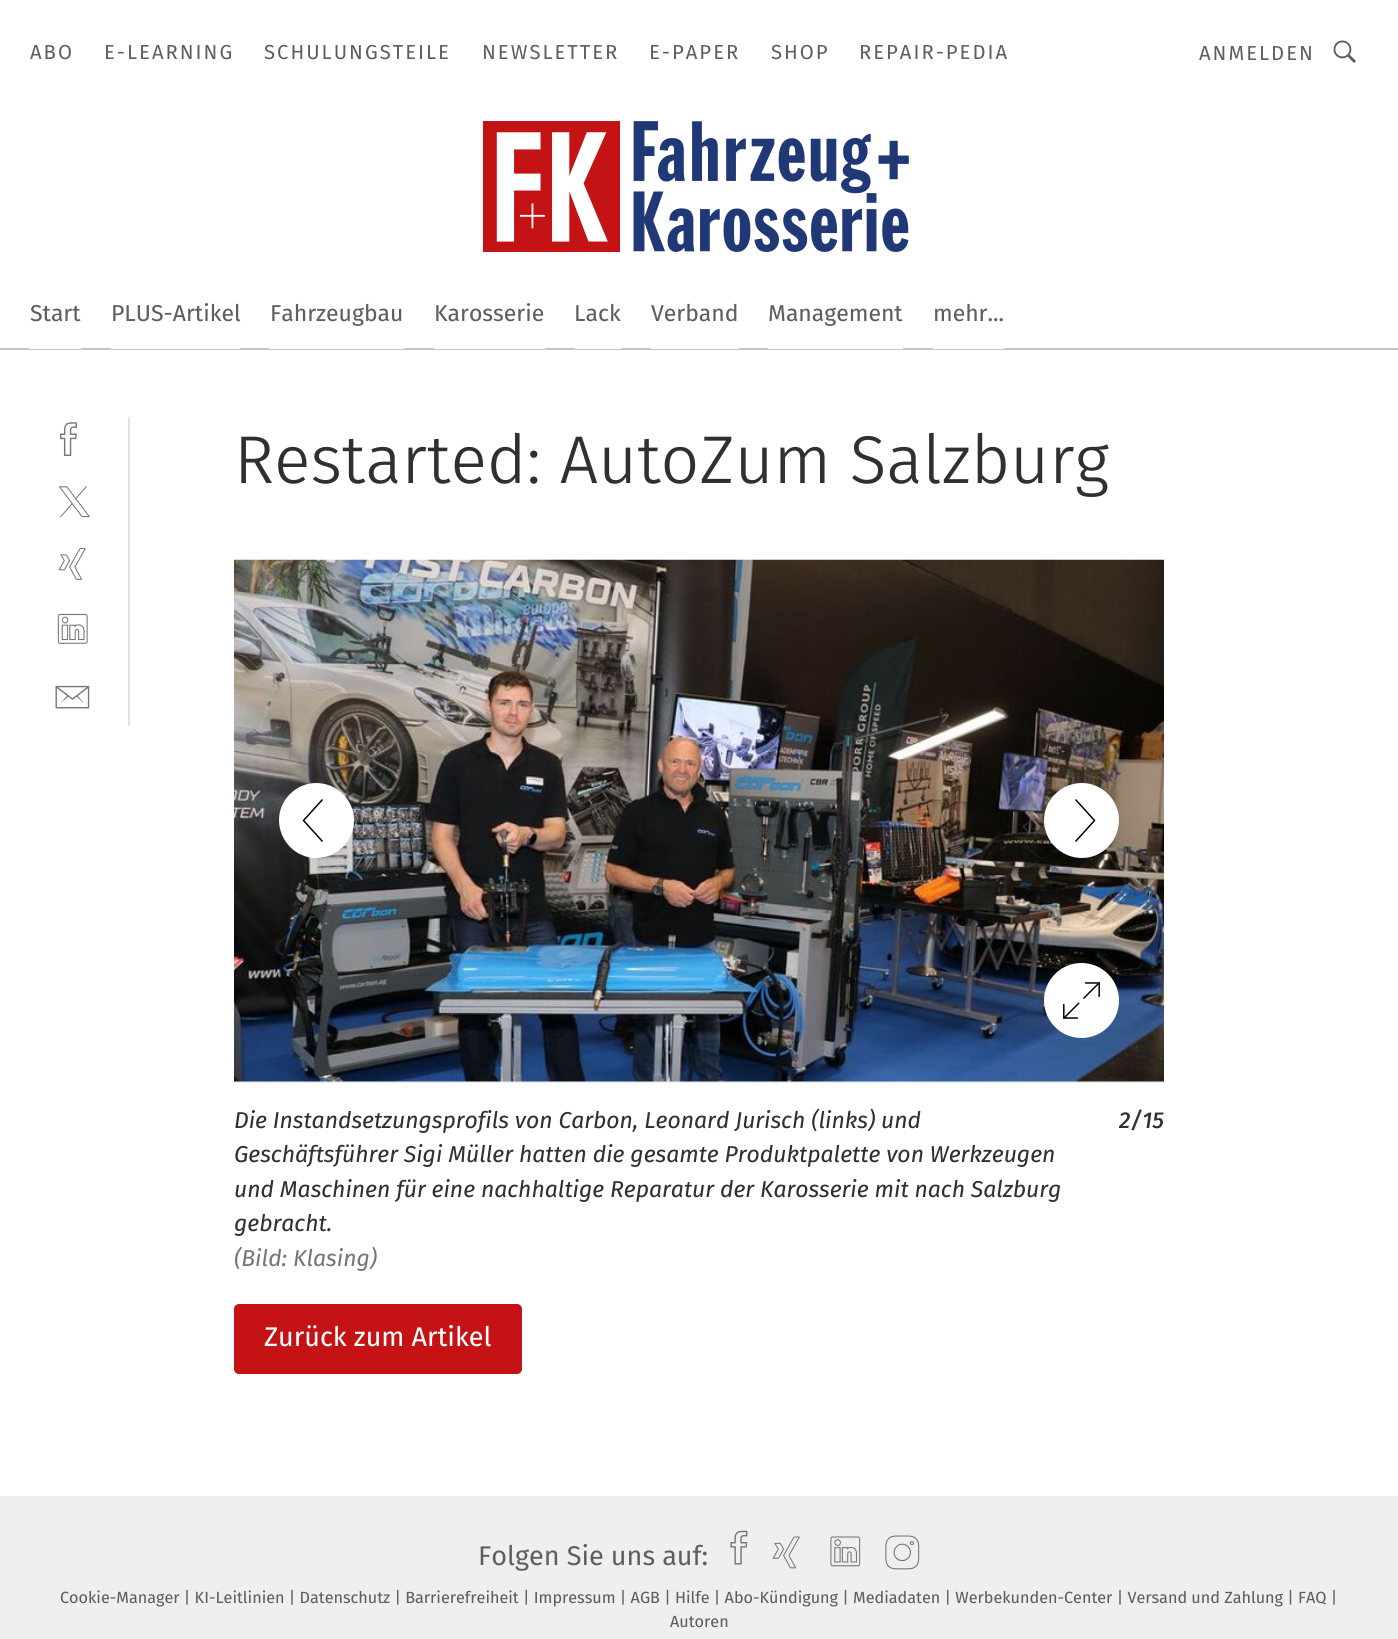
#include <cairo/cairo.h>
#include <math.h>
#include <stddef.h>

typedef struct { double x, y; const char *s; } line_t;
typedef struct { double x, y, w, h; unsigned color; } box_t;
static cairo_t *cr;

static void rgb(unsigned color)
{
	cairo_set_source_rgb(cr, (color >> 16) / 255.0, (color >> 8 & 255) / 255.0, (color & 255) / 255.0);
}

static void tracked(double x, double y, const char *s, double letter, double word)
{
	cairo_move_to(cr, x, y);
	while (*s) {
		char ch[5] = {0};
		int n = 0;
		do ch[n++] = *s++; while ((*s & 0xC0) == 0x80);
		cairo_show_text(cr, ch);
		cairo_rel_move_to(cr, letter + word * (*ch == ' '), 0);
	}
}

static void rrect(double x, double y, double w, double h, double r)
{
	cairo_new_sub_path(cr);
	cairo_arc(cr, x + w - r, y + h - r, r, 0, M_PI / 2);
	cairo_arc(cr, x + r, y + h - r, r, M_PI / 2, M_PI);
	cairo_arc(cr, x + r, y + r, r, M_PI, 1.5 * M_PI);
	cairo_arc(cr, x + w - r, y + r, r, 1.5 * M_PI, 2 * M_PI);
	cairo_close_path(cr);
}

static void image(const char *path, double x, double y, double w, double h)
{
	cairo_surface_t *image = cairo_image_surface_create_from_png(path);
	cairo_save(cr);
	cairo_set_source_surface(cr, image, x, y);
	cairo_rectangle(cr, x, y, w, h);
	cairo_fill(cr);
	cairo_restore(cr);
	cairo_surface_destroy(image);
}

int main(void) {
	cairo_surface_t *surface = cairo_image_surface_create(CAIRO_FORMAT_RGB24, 1398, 1639);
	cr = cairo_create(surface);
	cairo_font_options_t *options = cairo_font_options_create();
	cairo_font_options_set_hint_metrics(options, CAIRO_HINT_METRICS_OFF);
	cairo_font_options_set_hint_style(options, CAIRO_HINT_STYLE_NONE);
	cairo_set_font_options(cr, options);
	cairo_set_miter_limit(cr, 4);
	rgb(0xffffff);
	cairo_paint(cr);
	rgb(0xc6c6c6);
	cairo_rectangle(cr, 0, 348, 1398, 2);
	cairo_fill(cr);
	image("img/1.png", 1333, 40, 23, 23);
	image("img/2.png", 483, 121, 426, 131);
	{
		static const box_t items[] = {
			{30, 348, 51, 1, 0xffffff},
			{111, 348, 129, 1, 0xffffff},
			{270, 348, 134, 1, 0xffffff},
			{434, 348, 111, 1, 0xffffff},
			{575, 348, 46, 1, 0xffffff},
			{651, 348, 87, 1, 0xffffff},
			{768, 348, 135, 1, 0xffffff},
			{933, 348, 71, 1, 0xffffff},
			{128, 417, 2, 309, 0xe2e2e2},
		};
		for (size_t i = 0; i < sizeof items / sizeof *items; i++) {
			rgb(items[i].color);
			cairo_rectangle(cr, items[i].x, items[i].y, items[i].w, items[i].h);
			cairo_fill(cr);
		}
	}
	image("img/3.png", 60, 422, 17, 34);
	image("img/4.png", 58, 486, 33, 31);
	image("img/5.png", 58, 548, 28, 32);
	image("img/6.png", 57, 613, 31, 31);
	image("img/7.png", 55, 685, 35, 24);
	rgb(0xefefef);
	cairo_rectangle(cr, 234, 1081, 930, 2);
	cairo_fill(cr);
	image("img/8.png", 234, 559, 930, 523);
	rgb(0xffffff);
	cairo_new_path(cr);
	cairo_move_to(cr, 316, 858);
	cairo_curve_to(cr, 337, 858, 354, 841, 354, 820);
	cairo_curve_to(cr, 354, 800, 337, 783, 316, 783);
	cairo_curve_to(cr, 296, 783, 279, 800, 279, 820);
	cairo_curve_to(cr, 279, 841, 296, 858, 316, 858);
	cairo_fill(cr);
	cairo_new_path(cr);
	cairo_move_to(cr, 322.5, 799.5);
	cairo_line_to(cr, 303.5, 820.5);
	cairo_line_to(cr, 322.5, 841.5);
	rgb(0x000000);
	cairo_set_line_width(cr, 1.5);
	cairo_stroke(cr);
	rgb(0xffffff);
	cairo_new_path(cr);
	cairo_move_to(cr, 1082, 783);
	cairo_curve_to(cr, 1061, 783, 1044, 800, 1044, 820);
	cairo_curve_to(cr, 1044, 841, 1061, 858, 1082, 858);
	cairo_curve_to(cr, 1102, 858, 1119, 841, 1119, 820);
	cairo_curve_to(cr, 1119, 800, 1102, 783, 1082, 783);
	cairo_fill(cr);
	cairo_new_path(cr);
	cairo_move_to(cr, 1075.5, 841.5);
	cairo_line_to(cr, 1094.5, 820.5);
	cairo_line_to(cr, 1075.5, 799.5);
	rgb(0x000000);
	cairo_stroke(cr);
	image("img/9.png", 1044, 963, 75, 75);
	rgb(0xc51315);
	rrect(234, 1304, 288, 70, 5);
	cairo_fill(cr);
	rgb(0xefefef);
	cairo_rectangle(cr, 0, 1496, 1398, 143);
	cairo_fill(cr);
	image("img/10.png", 730, 1530, 18, 35);
	image("img/11.png", 772, 1536, 28, 33);
	image("img/12.png", 830, 1536, 31, 31);
	image("img/13.png", 885, 1535, 35, 35);
	cairo_select_font_face(cr, "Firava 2", CAIRO_FONT_SLANT_NORMAL, CAIRO_FONT_WEIGHT_NORMAL);
	cairo_set_font_size(cr, 20.25);
	rgb(0x5e5e5e);
	{
		static const line_t items[] = {
			{30, 59, "ABO"},
			{104, 59, "E-LEARNING"},
			{264, 59, "SCHULUNGSTEILE"},
			{482, 59, "NEWSLETTER"},
			{649, 59, "E-PAPER"},
			{771, 59, "SHOP"},
			{859, 59, "REPAIR-PEDIA"},
			{1199, 60, "ANMELDEN"},
		};
		for (size_t i = 0; i < sizeof items / sizeof *items; i++) {
			tracked(items[i].x, items[i].y, items[i].s, 2, 0);
		}
	}
	cairo_select_font_face(cr, "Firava", CAIRO_FONT_SLANT_NORMAL, CAIRO_FONT_WEIGHT_NORMAL);
	cairo_set_font_size(cr, 22.95);
	{
		static const line_t items[] = {
			{30, 321, "Start"},
			{111, 321, "PLUS-Artikel"},
			{270, 321, "Fahrzeugbau"},
			{434, 321, "Karosserie"},
			{574, 321, "Lack"},
			{651, 321, "Verband"},
			{768, 321, "Management"},
			{933, 321, "mehr..."},
		};
		for (size_t i = 0; i < sizeof items / sizeof *items; i++) {
			cairo_move_to(cr, items[i].x, items[i].y);
			cairo_show_text(cr, items[i].s);
		}
	}
	cairo_select_font_face(cr, "Firava Light", CAIRO_FONT_SLANT_NORMAL, CAIRO_FONT_WEIGHT_NORMAL);
	cairo_set_font_size(cr, 67.5);
	rgb(0x303030);
	cairo_move_to(cr, 234, 483);
	cairo_show_text(cr, "Restarted: AutoZum Salzburg");
	cairo_select_font_face(cr, "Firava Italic", CAIRO_FONT_SLANT_ITALIC, CAIRO_FONT_WEIGHT_NORMAL);
	cairo_set_font_size(cr, 22.95);
	{
		static const line_t items[] = {
			{234, 1128, "Die Instandsetzungsprofils von Carbon, Leonard Jurisch (links) und"},
			{234, 1162, "Geschäftsführer Sigi Müller hatten die gesamte Produktpalette von Werkzeugen"},
			{234, 1197, "und Maschinen für eine nachhaltige Reparatur der Karosserie mit nach Salzburg"},
			{234, 1231, "gebracht."},
		};
		for (size_t i = 0; i < sizeof items / sizeof *items; i++) {
			cairo_move_to(cr, items[i].x, items[i].y);
			cairo_show_text(cr, items[i].s);
		}
	}
	rgb(0x767676);
	cairo_move_to(cr, 234, 1266);
	cairo_show_text(cr, "(Bild: Klasing)");
	cairo_select_font_face(cr, "Firava Italic Medium", CAIRO_FONT_SLANT_ITALIC, CAIRO_FONT_WEIGHT_NORMAL);
	rgb(0x303030);
	cairo_move_to(cr, 1119, 1128);
	cairo_show_text(cr, "2/15");
	cairo_select_font_face(cr, "Firava", CAIRO_FONT_SLANT_NORMAL, CAIRO_FONT_WEIGHT_NORMAL);
	cairo_set_font_size(cr, 27);
	rgb(0xffffff);
	cairo_move_to(cr, 264, 1346);
	cairo_show_text(cr, "Zurück zum Artikel");
	cairo_select_font_face(cr, "Firava 2", CAIRO_FONT_SLANT_NORMAL, CAIRO_FONT_WEIGHT_NORMAL);
	rgb(0x5e5e5e);
	cairo_move_to(cr, 478, 1565);
	cairo_show_text(cr, "Folgen Sie uns auf:");
	cairo_select_font_face(cr, "Firava", CAIRO_FONT_SLANT_NORMAL, CAIRO_FONT_WEIGHT_NORMAL);
	cairo_set_font_size(cr, 16.2);
	cairo_move_to(cr, 60, 1603);
	cairo_show_text(cr, "Cookie-Manager | KI-Leitlinien | Datenschutz | Barrierefreiheit | Impressum | AGB | Hilfe | Abo-Kündigung | Mediadaten | Werbekunden-Center | Versand und Zahlung | FAQ |");
	cairo_move_to(cr, 670, 1627);
	cairo_show_text(cr, "Autoren");
	cairo_surface_write_to_png(surface, "page.png");
	cairo_font_options_destroy(options);
	cairo_destroy(cr);
	cairo_surface_destroy(surface);
	return 0;
}
